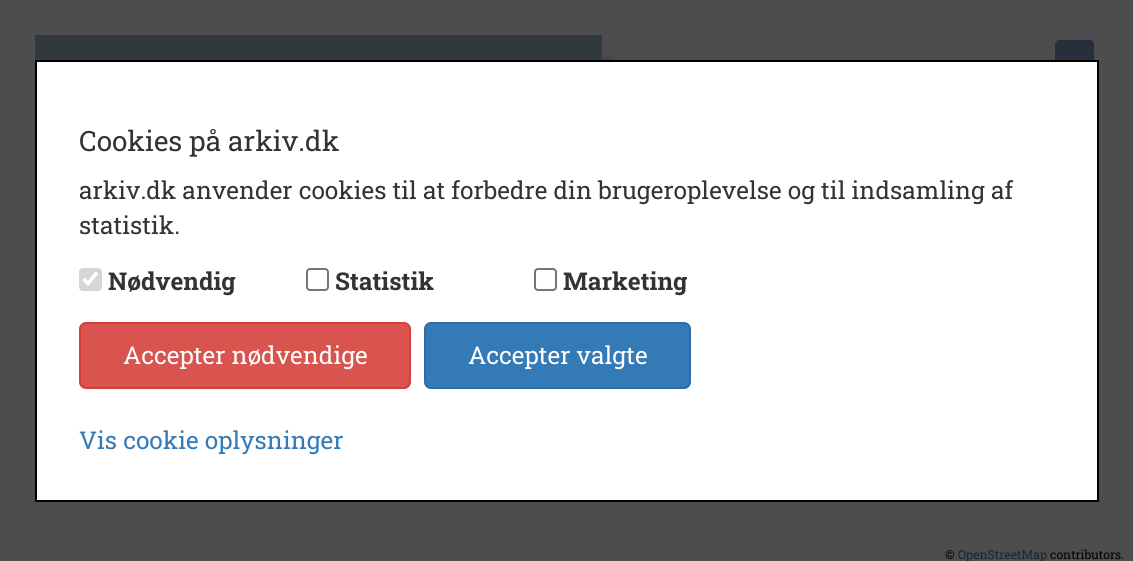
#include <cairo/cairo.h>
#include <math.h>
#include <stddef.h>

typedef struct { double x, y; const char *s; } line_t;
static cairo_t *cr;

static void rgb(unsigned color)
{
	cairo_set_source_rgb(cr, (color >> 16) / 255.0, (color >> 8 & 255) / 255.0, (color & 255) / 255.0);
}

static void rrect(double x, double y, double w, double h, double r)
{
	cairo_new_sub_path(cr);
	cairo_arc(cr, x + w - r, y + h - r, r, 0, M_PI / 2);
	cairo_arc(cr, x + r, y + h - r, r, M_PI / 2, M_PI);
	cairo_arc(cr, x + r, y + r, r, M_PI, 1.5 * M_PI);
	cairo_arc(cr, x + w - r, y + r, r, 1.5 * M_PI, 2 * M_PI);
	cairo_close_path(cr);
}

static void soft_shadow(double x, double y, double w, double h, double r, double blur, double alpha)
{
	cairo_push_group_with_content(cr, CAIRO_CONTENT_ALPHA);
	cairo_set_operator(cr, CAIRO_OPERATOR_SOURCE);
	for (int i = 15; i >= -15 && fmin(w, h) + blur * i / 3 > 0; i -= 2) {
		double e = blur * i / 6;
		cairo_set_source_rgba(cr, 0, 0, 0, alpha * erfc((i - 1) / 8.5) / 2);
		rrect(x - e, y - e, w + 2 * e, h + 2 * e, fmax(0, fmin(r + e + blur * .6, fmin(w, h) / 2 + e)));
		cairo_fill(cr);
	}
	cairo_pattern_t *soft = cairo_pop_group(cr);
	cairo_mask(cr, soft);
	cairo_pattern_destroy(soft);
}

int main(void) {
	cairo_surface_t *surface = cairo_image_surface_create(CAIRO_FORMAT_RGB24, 1133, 561);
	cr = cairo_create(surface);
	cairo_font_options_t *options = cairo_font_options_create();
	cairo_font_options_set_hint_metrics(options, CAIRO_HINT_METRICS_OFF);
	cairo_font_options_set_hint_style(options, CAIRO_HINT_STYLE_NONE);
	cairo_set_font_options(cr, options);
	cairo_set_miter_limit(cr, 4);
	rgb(0x4d4d4d);
	cairo_paint(cr);
	rgb(0x000000);
	soft_shadow(60, 60, 549, 199, 0, 4.5, 0.3);
	rgb(0x262f3b);
	cairo_new_path(cr);
	cairo_move_to(cr, 1059, 40);
	cairo_line_to(cr, 1090, 40);
	cairo_curve_to(cr, 1092, 40, 1094, 42, 1094, 44);
	cairo_line_to(cr, 1094, 79);
	cairo_line_to(cr, 1055, 79);
	cairo_line_to(cr, 1055, 44);
	cairo_curve_to(cr, 1055, 42, 1057, 40, 1059, 40);
	cairo_close_path(cr);
	cairo_fill(cr);
	rgb(0xffffff);
	cairo_rectangle(cr, 36, 61, 1062, 440);
	cairo_fill_preserve(cr);
	rgb(0x000000);
	cairo_stroke(cr);
	rgb(0xd6d6d6);
	rrect(79, 268, 23, 23, 4);
	cairo_fill(cr);
	cairo_new_path(cr);
	cairo_move_to(cr, 83.5, 279);
	cairo_line_to(cr, 88, 283.5);
	cairo_line_to(cr, 97, 272.5);
	rgb(0xffffff);
	cairo_set_line_width(cr, 3.6);
	cairo_stroke(cr);
	rrect(307, 269, 21, 21, 3);
	rgb(0x767676);
	cairo_set_line_width(cr, 2);
	cairo_stroke(cr);
	rrect(535, 269, 21, 21, 3);
	cairo_stroke(cr);
	rgb(0xd9534f);
	rrect(80, 323, 330, 65, 6);
	cairo_fill_preserve(cr);
	rgb(0xd43f3a);
	cairo_stroke(cr);
	rgb(0x337ab7);
	rrect(425, 323, 265, 65, 6);
	cairo_fill_preserve(cr);
	rgb(0x2e6da4);
	cairo_stroke(cr);
	rgb(0x303a3e);
	cairo_rectangle(cr, 35, 35, 567, 25);
	cairo_fill(cr);
	cairo_select_font_face(cr, "Roboto Slab", CAIRO_FONT_SLANT_NORMAL, CAIRO_FONT_WEIGHT_NORMAL);
	cairo_set_font_size(cr, 28);
	rgb(0x333333);
	cairo_move_to(cr, 79, 151);
	cairo_show_text(cr, "Cookies på arkiv.dk");
	cairo_set_font_size(cr, 24.5);
	cairo_move_to(cr, 79, 199);
	cairo_show_text(cr, "arkiv.dk anvender cookies til at forbedre din brugeroplevelse og til indsamling af");
	cairo_move_to(cr, 79, 234);
	cairo_show_text(cr, "statistik.");
	cairo_select_font_face(cr, "Roboto Slab", CAIRO_FONT_SLANT_NORMAL, CAIRO_FONT_WEIGHT_BOLD);
	{
		static const line_t items[] = {
			{108, 290, "Nødvendig"},
			{335, 290, "Statistik"},
			{563, 290, "Marketing"},
		};
		for (size_t i = 0; i < sizeof items / sizeof *items; i++) {
			cairo_move_to(cr, items[i].x, items[i].y);
			cairo_show_text(cr, items[i].s);
		}
	}
	cairo_select_font_face(cr, "Roboto Slab", CAIRO_FONT_SLANT_NORMAL, CAIRO_FONT_WEIGHT_NORMAL);
	rgb(0xffffff);
	cairo_move_to(cr, 123, 364);
	cairo_show_text(cr, "Accepter nødvendige");
	cairo_move_to(cr, 468, 364);
	cairo_show_text(cr, "Accepter valgte");
	rgb(0x337ab7);
	cairo_move_to(cr, 79, 449);
	cairo_show_text(cr, "Vis cookie oplysninger");
	cairo_set_font_size(cr, 12.25);
	rgb(0x000000);
	cairo_move_to(cr, 945, 559);
	cairo_show_text(cr, "©");
	rgb(0x0f2537);
	cairo_move_to(cr, 958, 559);
	cairo_show_text(cr, "OpenStreetMap");
	rgb(0x000000);
	cairo_move_to(cr, 1050, 559);
	cairo_show_text(cr, "contributors.");
	cairo_surface_write_to_png(surface, "page.png");
	cairo_font_options_destroy(options);
	cairo_destroy(cr);
	cairo_surface_destroy(surface);
	return 0;
}
